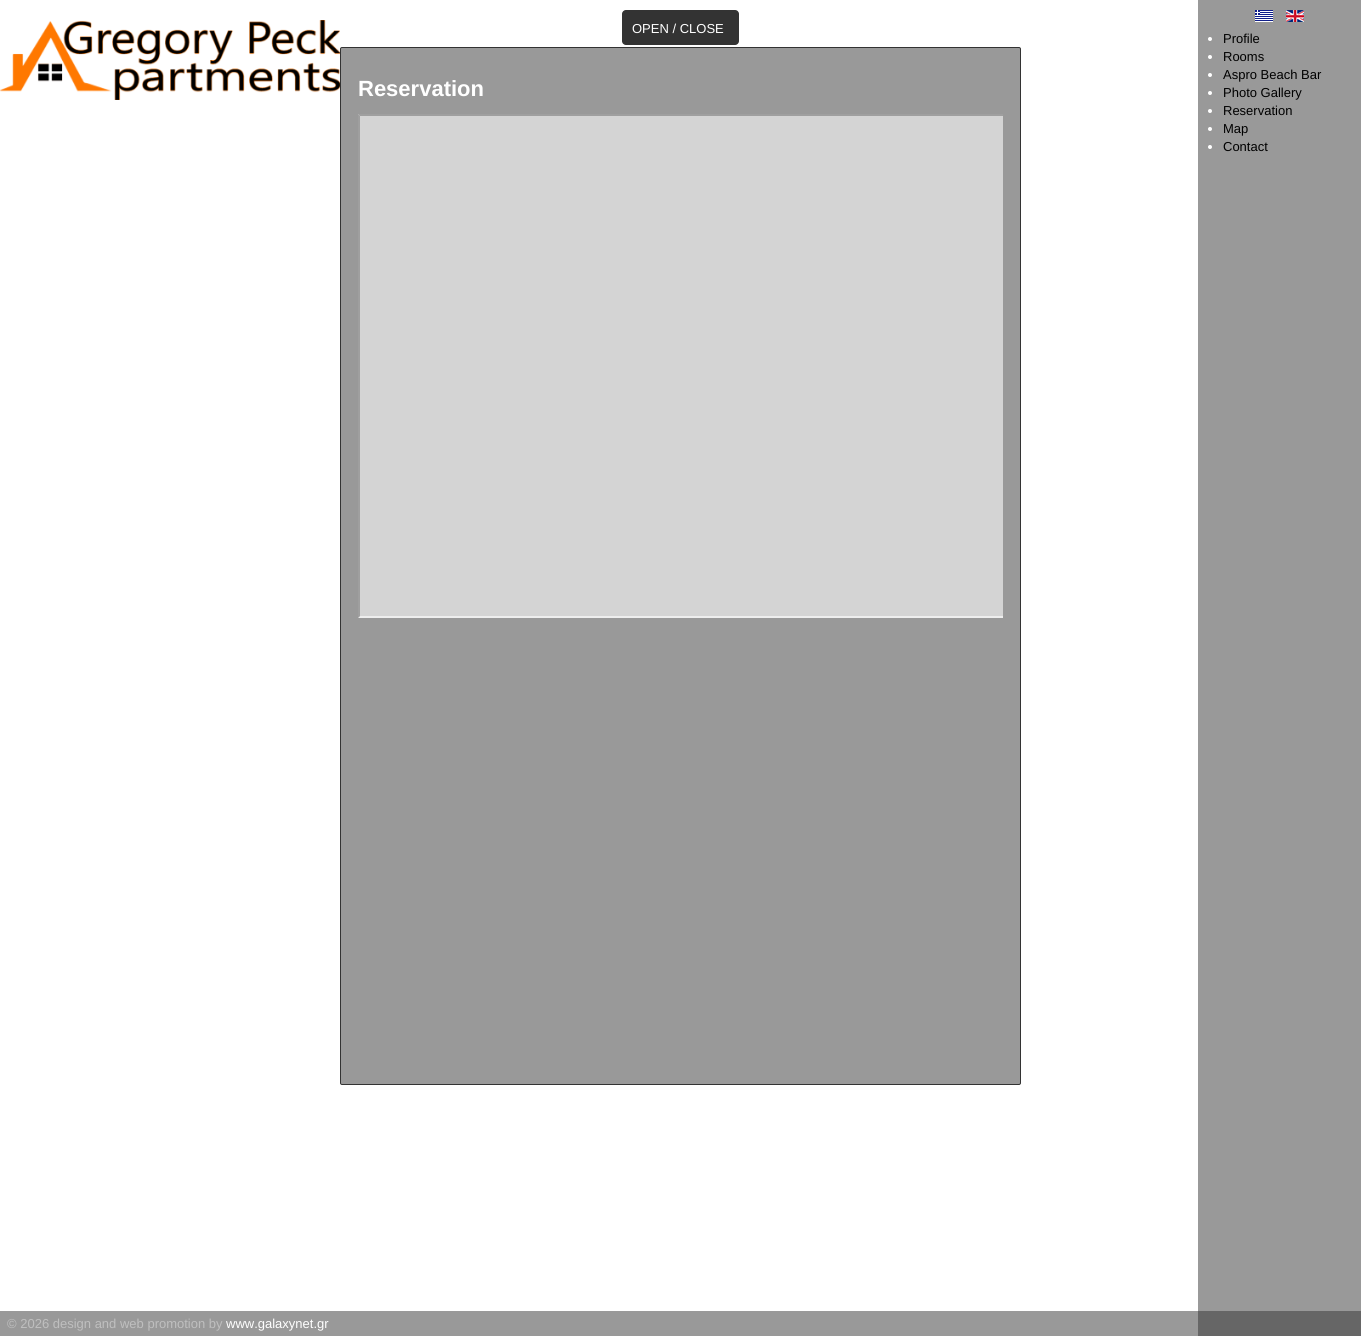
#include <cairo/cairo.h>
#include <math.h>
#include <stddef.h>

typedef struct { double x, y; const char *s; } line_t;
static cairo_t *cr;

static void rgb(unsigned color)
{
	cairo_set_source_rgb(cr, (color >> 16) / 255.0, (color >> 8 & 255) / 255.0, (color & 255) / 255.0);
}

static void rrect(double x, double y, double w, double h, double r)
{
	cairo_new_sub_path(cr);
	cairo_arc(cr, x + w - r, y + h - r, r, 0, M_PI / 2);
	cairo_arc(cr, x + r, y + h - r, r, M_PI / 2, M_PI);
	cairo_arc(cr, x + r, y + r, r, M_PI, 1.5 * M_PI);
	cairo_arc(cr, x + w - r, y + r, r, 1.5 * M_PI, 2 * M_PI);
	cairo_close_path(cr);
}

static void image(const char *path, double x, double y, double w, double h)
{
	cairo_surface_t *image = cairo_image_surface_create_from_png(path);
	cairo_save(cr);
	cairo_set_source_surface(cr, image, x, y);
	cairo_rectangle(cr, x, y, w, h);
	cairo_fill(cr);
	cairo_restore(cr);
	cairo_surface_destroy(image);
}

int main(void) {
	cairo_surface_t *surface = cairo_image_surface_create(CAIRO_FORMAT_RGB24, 1361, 1336);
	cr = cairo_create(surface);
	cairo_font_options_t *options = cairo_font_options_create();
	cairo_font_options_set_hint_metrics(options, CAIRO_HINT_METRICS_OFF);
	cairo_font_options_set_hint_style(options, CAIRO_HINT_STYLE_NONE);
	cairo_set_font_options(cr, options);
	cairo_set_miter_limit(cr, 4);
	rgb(0xffffff);
	cairo_paint(cr);
	rgb(0x999999);
	cairo_rectangle(cr, 0, 1311, 1198, 25);
	cairo_fill(cr);
	image("img/1.png", 0, 20, 340, 80);
	rgb(0x333333);
	rrect(622, 10, 117, 35, 4);
	cairo_fill(cr);
	rgb(0x999999);
	rrect(340.5, 47.5, 680, 1037, 1.5);
	cairo_fill_preserve(cr);
	rgb(0x333333);
	cairo_set_line_width(cr, 1);
	cairo_stroke(cr);
	rgb(0xd4d4d4);
	cairo_rectangle(cr, 358, 114, 645, 504);
	cairo_fill(cr);
	cairo_save(cr);
	cairo_rectangle(cr, 358, 65, 645, 571);
	cairo_clip(cr);
	rgb(0x9f9f9f);
	cairo_new_path(cr);
	cairo_move_to(cr, 358, 114);
	cairo_line_to(cr, 1007, 114);
	cairo_line_to(cr, 1005, 116);
	cairo_line_to(cr, 360, 116);
	cairo_close_path(cr);
	cairo_fill(cr);
	rgb(0xeeeeee);
	cairo_new_path(cr);
	cairo_move_to(cr, 1007, 618);
	cairo_line_to(cr, 358, 618);
	cairo_line_to(cr, 360, 616);
	cairo_line_to(cr, 1005, 616);
	cairo_close_path(cr);
	cairo_fill(cr);
	cairo_restore(cr);
	rgb(0x9f9f9f);
	cairo_new_path(cr);
	cairo_move_to(cr, 358, 618);
	cairo_line_to(cr, 358, 114);
	cairo_line_to(cr, 360, 116);
	cairo_line_to(cr, 360, 616);
	cairo_close_path(cr);
	cairo_fill(cr);
	rgb(0x999999);
	cairo_rectangle(cr, 1198, 0, 163, 1311);
	cairo_fill(cr);
	rgb(0x666666);
	cairo_rectangle(cr, 1198, 1311, 163, 25);
	cairo_fill(cr);
	image("img/2.png", 1255, 10, 18, 12);
	image("img/3.png", 1286, 10, 18, 12);
	rgb(0xffffff);
	cairo_arc(cr, 1210, 39, 2, 0, 2 * M_PI);
	cairo_fill(cr);
	cairo_arc(cr, 1210, 57, 2, 0, 2 * M_PI);
	cairo_fill(cr);
	cairo_arc(cr, 1210, 75, 2, 0, 2 * M_PI);
	cairo_fill(cr);
	cairo_arc(cr, 1210, 93, 2, 0, 2 * M_PI);
	cairo_fill(cr);
	cairo_arc(cr, 1210, 111, 2, 0, 2 * M_PI);
	cairo_fill(cr);
	cairo_arc(cr, 1210, 129, 2, 0, 2 * M_PI);
	cairo_fill(cr);
	cairo_arc(cr, 1210, 147, 2, 0, 2 * M_PI);
	cairo_fill(cr);
	cairo_select_font_face(cr, "Liberation Sans", CAIRO_FONT_SLANT_NORMAL, CAIRO_FONT_WEIGHT_NORMAL);
	cairo_set_font_size(cr, 13);
	cairo_move_to(cr, 632, 33);
	cairo_show_text(cr, "OPEN / CLOSE");
	cairo_select_font_face(cr, "Liberation Sans", CAIRO_FONT_SLANT_NORMAL, CAIRO_FONT_WEIGHT_BOLD);
	cairo_set_font_size(cr, 22);
	cairo_move_to(cr, 358, 96);
	cairo_show_text(cr, "Reservation");
	cairo_select_font_face(cr, "Liberation Sans", CAIRO_FONT_SLANT_NORMAL, CAIRO_FONT_WEIGHT_NORMAL);
	cairo_set_font_size(cr, 13);
	rgb(0x000000);
	{
		static const line_t items[] = {
			{1223, 43, "Profile"},
			{1223, 61, "Rooms"},
			{1223, 79, "Aspro Beach Bar"},
			{1223, 97, "Photo Gallery"},
			{1223, 115, "Reservation"},
			{1223, 133, "Map"},
			{1223, 151, "Contact"},
		};
		for (size_t i = 0; i < sizeof items / sizeof *items; i++) {
			cairo_move_to(cr, items[i].x, items[i].y);
			cairo_show_text(cr, items[i].s);
		}
	}
	rgb(0xbfbfbf);
	cairo_move_to(cr, 7, 1328);
	cairo_show_text(cr, "© 2026 design and web promotion by");
	rgb(0xffffff);
	cairo_move_to(cr, 226, 1328);
	cairo_show_text(cr, "www.galaxynet.gr");
	cairo_surface_write_to_png(surface, "page.png");
	cairo_font_options_destroy(options);
	cairo_destroy(cr);
	cairo_surface_destroy(surface);
	return 0;
}
